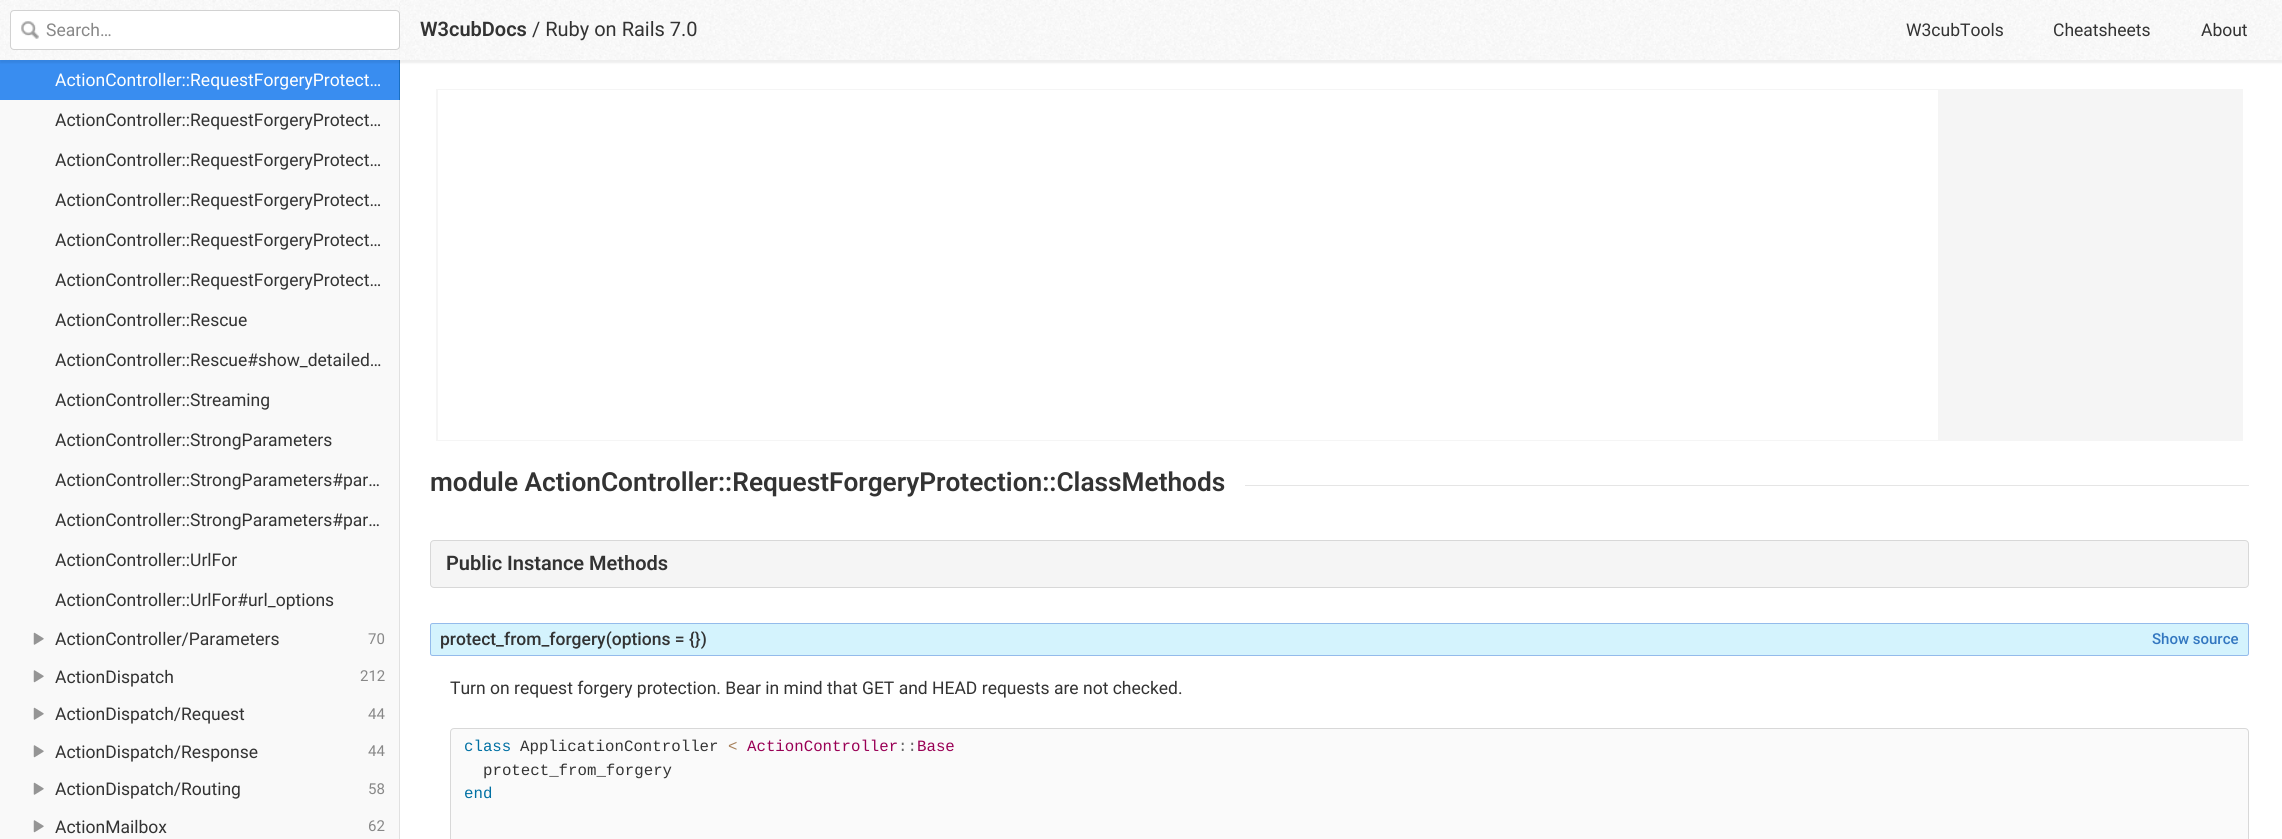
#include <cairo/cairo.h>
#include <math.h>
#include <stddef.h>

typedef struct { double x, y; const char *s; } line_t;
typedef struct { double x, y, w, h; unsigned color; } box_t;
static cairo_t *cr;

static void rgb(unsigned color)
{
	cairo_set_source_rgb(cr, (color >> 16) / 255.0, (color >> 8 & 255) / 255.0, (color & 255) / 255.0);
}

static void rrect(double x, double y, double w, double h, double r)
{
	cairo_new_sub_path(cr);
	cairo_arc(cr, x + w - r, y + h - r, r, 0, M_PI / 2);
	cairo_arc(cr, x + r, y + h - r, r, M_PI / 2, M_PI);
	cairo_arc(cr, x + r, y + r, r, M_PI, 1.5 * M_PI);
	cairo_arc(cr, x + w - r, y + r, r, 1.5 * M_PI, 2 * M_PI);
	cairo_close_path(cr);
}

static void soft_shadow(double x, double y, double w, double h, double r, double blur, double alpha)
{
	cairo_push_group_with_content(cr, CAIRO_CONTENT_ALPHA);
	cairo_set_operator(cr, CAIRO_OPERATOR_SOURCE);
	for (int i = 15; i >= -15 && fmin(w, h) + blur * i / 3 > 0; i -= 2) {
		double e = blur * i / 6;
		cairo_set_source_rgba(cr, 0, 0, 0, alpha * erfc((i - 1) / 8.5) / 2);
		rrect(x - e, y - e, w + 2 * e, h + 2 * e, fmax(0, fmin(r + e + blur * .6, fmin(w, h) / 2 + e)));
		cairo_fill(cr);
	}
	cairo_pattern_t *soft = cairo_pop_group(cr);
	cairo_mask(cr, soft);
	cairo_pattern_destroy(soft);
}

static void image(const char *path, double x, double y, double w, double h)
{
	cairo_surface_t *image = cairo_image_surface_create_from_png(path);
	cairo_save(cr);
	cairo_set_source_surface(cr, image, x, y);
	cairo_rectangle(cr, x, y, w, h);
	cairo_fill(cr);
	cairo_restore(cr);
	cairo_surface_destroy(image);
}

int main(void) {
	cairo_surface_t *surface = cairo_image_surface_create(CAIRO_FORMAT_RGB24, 2282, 839);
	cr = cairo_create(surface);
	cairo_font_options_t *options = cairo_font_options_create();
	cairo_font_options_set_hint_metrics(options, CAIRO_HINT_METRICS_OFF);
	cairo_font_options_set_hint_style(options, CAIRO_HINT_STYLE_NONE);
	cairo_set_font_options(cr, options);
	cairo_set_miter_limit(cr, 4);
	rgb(0xffffff);
	cairo_paint(cr);
	rgb(0x398df0);
	cairo_rectangle(cr, 0, 60, 399, 40);
	cairo_fill(cr);
	rgb(0x196fc2);
	cairo_rectangle(cr, 399, 60, 1, 40);
	cairo_fill(cr);
	cairo_save(cr);
	cairo_rectangle(cr, 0, 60, 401, 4);
	cairo_clip(cr);
	rgb(0x000000);
	soft_shadow(0, 3, 400, 60, 0, 1, 0.07);
	cairo_restore(cr);
	image("img/1.png", 0, 0, 400, 60);
	rgb(0xffffff);
	rrect(10.5, 10.5, 389, 39, 3.5);
	cairo_fill_preserve(cr);
	rgb(0xd2d2d2);
	cairo_set_line_width(cr, 1);
	cairo_stroke(cr);
	image("img/2.png", 21, 21, 18, 18);
	rgb(0xf9f9f9);
	cairo_rectangle(cr, 0, 100, 399, 739);
	cairo_fill(cr);
	rgb(0xe1e1e1);
	cairo_rectangle(cr, 399, 100, 1, 739);
	cairo_fill(cr);
	image("img/3.png", 33, 632, 11, 13);
	image("img/4.png", 33, 670, 11, 13);
	image("img/3.png", 33, 707, 11, 13);
	image("img/4.png", 33, 745, 11, 13);
	image("img/3.png", 33, 782, 11, 13);
	image("img/4.png", 33, 820, 11, 13);
	rgb(0x000000);
	soft_shadow(400, 3, 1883, 60, 0, 1, 0.07);
	rgb(0xffffff);
	cairo_rectangle(cr, 400, 2, 1882, 58);
	cairo_fill(cr);
	image("img/5.png", 400, 0, 1882, 60);
	{
		static const box_t items[] = {
			{436, 89, 1807, 352, 0xf5f5f5},
			{438, 90, 1500, 350, 0xffffff},
			{1245, 485, 1004, 1, 0xe5e5e5},
		};
		for (size_t i = 0; i < sizeof items / sizeof *items; i++) {
			rgb(items[i].color);
			cairo_rectangle(cr, items[i].x, items[i].y, items[i].w, items[i].h);
			cairo_fill(cr);
		}
	}
	rgb(0xf5f5f5);
	rrect(430.5, 540.5, 1818, 47, 3.5);
	cairo_fill_preserve(cr);
	rgb(0xd8d8d8);
	cairo_stroke(cr);
	rgb(0xd4f3fd);
	rrect(430.5, 623.5, 1818, 32, 2);
	cairo_fill_preserve(cr);
	rgb(0x94bbeb);
	cairo_stroke(cr);
	rgb(0xfafafa);
	rrect(450.5, 728.5, 1798, 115, 3.5);
	cairo_fill_preserve(cr);
	rgb(0xd8d8d8);
	cairo_stroke(cr);
	cairo_select_font_face(cr, "Roboto", CAIRO_FONT_SLANT_NORMAL, CAIRO_FONT_WEIGHT_NORMAL);
	cairo_set_font_size(cr, 17.5);
	rgb(0x888888);
	cairo_move_to(cr, 46, 36);
	cairo_show_text(cr, "Search…");
	rgb(0xffffff);
	cairo_move_to(cr, 55, 86);
	cairo_show_text(cr, "ActionController::RequestForgeryProtect…");
	rgb(0x333333);
	{
		static const line_t items[] = {
			{55, 126, "ActionController::RequestForgeryProtect…"},
			{55, 166, "ActionController::RequestForgeryProtect…"},
			{55, 206, "ActionController::RequestForgeryProtect…"},
			{55, 246, "ActionController::RequestForgeryProtect…"},
			{55, 286, "ActionController::RequestForgeryProtect…"},
			{55, 326, "ActionController::Rescue"},
			{55, 366, "ActionController::Rescue#show_detailed…"},
			{55, 406, "ActionController::Streaming"},
			{55, 446, "ActionController::StrongParameters"},
			{55, 486, "ActionController::StrongParameters#par…"},
			{55, 526, "ActionController::StrongParameters#par…"},
			{55, 566, "ActionController::UrlFor"},
			{55, 606, "ActionController::UrlFor#url_options"},
			{55, 645, "ActionController/Parameters"},
		};
		for (size_t i = 0; i < sizeof items / sizeof *items; i++) {
			cairo_move_to(cr, items[i].x, items[i].y);
			cairo_show_text(cr, items[i].s);
		}
	}
	cairo_set_font_size(cr, 15);
	rgb(0x888888);
	cairo_move_to(cr, 368, 644);
	cairo_show_text(cr, "70");
	cairo_set_font_size(cr, 17.5);
	rgb(0x333333);
	cairo_move_to(cr, 55, 683);
	cairo_show_text(cr, "ActionDispatch");
	cairo_set_font_size(cr, 15);
	rgb(0x888888);
	cairo_move_to(cr, 360, 681);
	cairo_show_text(cr, "212");
	cairo_set_font_size(cr, 17.5);
	rgb(0x333333);
	cairo_move_to(cr, 55, 720);
	cairo_show_text(cr, "ActionDispatch/Request");
	cairo_set_font_size(cr, 15);
	rgb(0x888888);
	cairo_move_to(cr, 368, 719);
	cairo_show_text(cr, "44");
	cairo_set_font_size(cr, 17.5);
	rgb(0x333333);
	cairo_move_to(cr, 55, 758);
	cairo_show_text(cr, "ActionDispatch/Response");
	cairo_set_font_size(cr, 15);
	rgb(0x888888);
	cairo_move_to(cr, 368, 756);
	cairo_show_text(cr, "44");
	cairo_set_font_size(cr, 17.5);
	rgb(0x333333);
	cairo_move_to(cr, 55, 795);
	cairo_show_text(cr, "ActionDispatch/Routing");
	cairo_set_font_size(cr, 15);
	rgb(0x888888);
	cairo_move_to(cr, 368, 794);
	cairo_show_text(cr, "58");
	cairo_set_font_size(cr, 17.5);
	rgb(0x333333);
	cairo_move_to(cr, 55, 833);
	cairo_show_text(cr, "ActionMailbox");
	cairo_set_font_size(cr, 15);
	rgb(0x888888);
	cairo_move_to(cr, 368, 831);
	cairo_show_text(cr, "62");
	cairo_select_font_face(cr, "Roboto SemiBold", CAIRO_FONT_SLANT_NORMAL, CAIRO_FONT_WEIGHT_NORMAL);
	cairo_set_font_size(cr, 20);
	rgb(0x333333);
	cairo_move_to(cr, 420, 36);
	cairo_show_text(cr, "W3cubDocs");
	cairo_select_font_face(cr, "Roboto", CAIRO_FONT_SLANT_NORMAL, CAIRO_FONT_WEIGHT_NORMAL);
	cairo_move_to(cr, 532, 36);
	cairo_show_text(cr, "/ Ruby on Rails 7.0");
	cairo_set_font_size(cr, 17.5);
	{
		static const line_t items[] = {
			{1906, 36, "W3cubTools"},
			{2053, 36, "Cheatsheets"},
			{2201, 36, "About"},
		};
		for (size_t i = 0; i < sizeof items / sizeof *items; i++) {
			cairo_move_to(cr, items[i].x, items[i].y);
			cairo_show_text(cr, items[i].s);
		}
	}
	cairo_select_font_face(cr, "Roboto SemiBold", CAIRO_FONT_SLANT_NORMAL, CAIRO_FONT_WEIGHT_NORMAL);
	cairo_set_font_size(cr, 26.25);
	cairo_move_to(cr, 430, 491);
	cairo_show_text(cr, "module ActionController::RequestForgeryProtection::ClassMethods");
	cairo_set_font_size(cr, 20);
	cairo_move_to(cr, 446, 570);
	cairo_show_text(cr, "Public Instance Methods");
	cairo_select_font_face(cr, "Roboto Medium", CAIRO_FONT_SLANT_NORMAL, CAIRO_FONT_WEIGHT_NORMAL);
	cairo_set_font_size(cr, 17.5);
	cairo_move_to(cr, 440, 645);
	cairo_show_text(cr, "protect_from_forgery(options = {})");
	cairo_set_font_size(cr, 15);
	rgb(0x3377c0);
	cairo_move_to(cr, 2152, 644);
	cairo_show_text(cr, "Show source");
	cairo_select_font_face(cr, "Roboto", CAIRO_FONT_SLANT_NORMAL, CAIRO_FONT_WEIGHT_NORMAL);
	cairo_set_font_size(cr, 17.5);
	rgb(0x333333);
	cairo_move_to(cr, 450, 694);
	cairo_show_text(cr, "Turn on request forgery protection. Bear in mind that GET and HEAD requests are not checked.");
	cairo_select_font_face(cr, "Liberation Mono", CAIRO_FONT_SLANT_NORMAL, CAIRO_FONT_WEIGHT_NORMAL);
	cairo_set_font_size(cr, 15.75);
	rgb(0x0070a3);
	cairo_move_to(cr, 464, 751);
	cairo_show_text(cr, "class");
	rgb(0x333333);
	cairo_move_to(cr, 520, 751);
	cairo_show_text(cr, "ApplicationController");
	rgb(0xa67f59);
	cairo_move_to(cr, 728, 751);
	cairo_show_text(cr, "<");
	rgb(0x990055);
	cairo_move_to(cr, 747, 751);
	cairo_show_text(cr, "ActionController");
	rgb(0x666666);
	cairo_move_to(cr, 898, 751);
	cairo_show_text(cr, "::");
	rgb(0x990055);
	cairo_move_to(cr, 917, 751);
	cairo_show_text(cr, "Base");
	rgb(0x333333);
	cairo_move_to(cr, 483, 775);
	cairo_show_text(cr, "protect_from_forgery");
	rgb(0x0070a3);
	cairo_move_to(cr, 464, 798);
	cairo_show_text(cr, "end");
	cairo_surface_write_to_png(surface, "page.png");
	cairo_font_options_destroy(options);
	cairo_destroy(cr);
	cairo_surface_destroy(surface);
	return 0;
}
